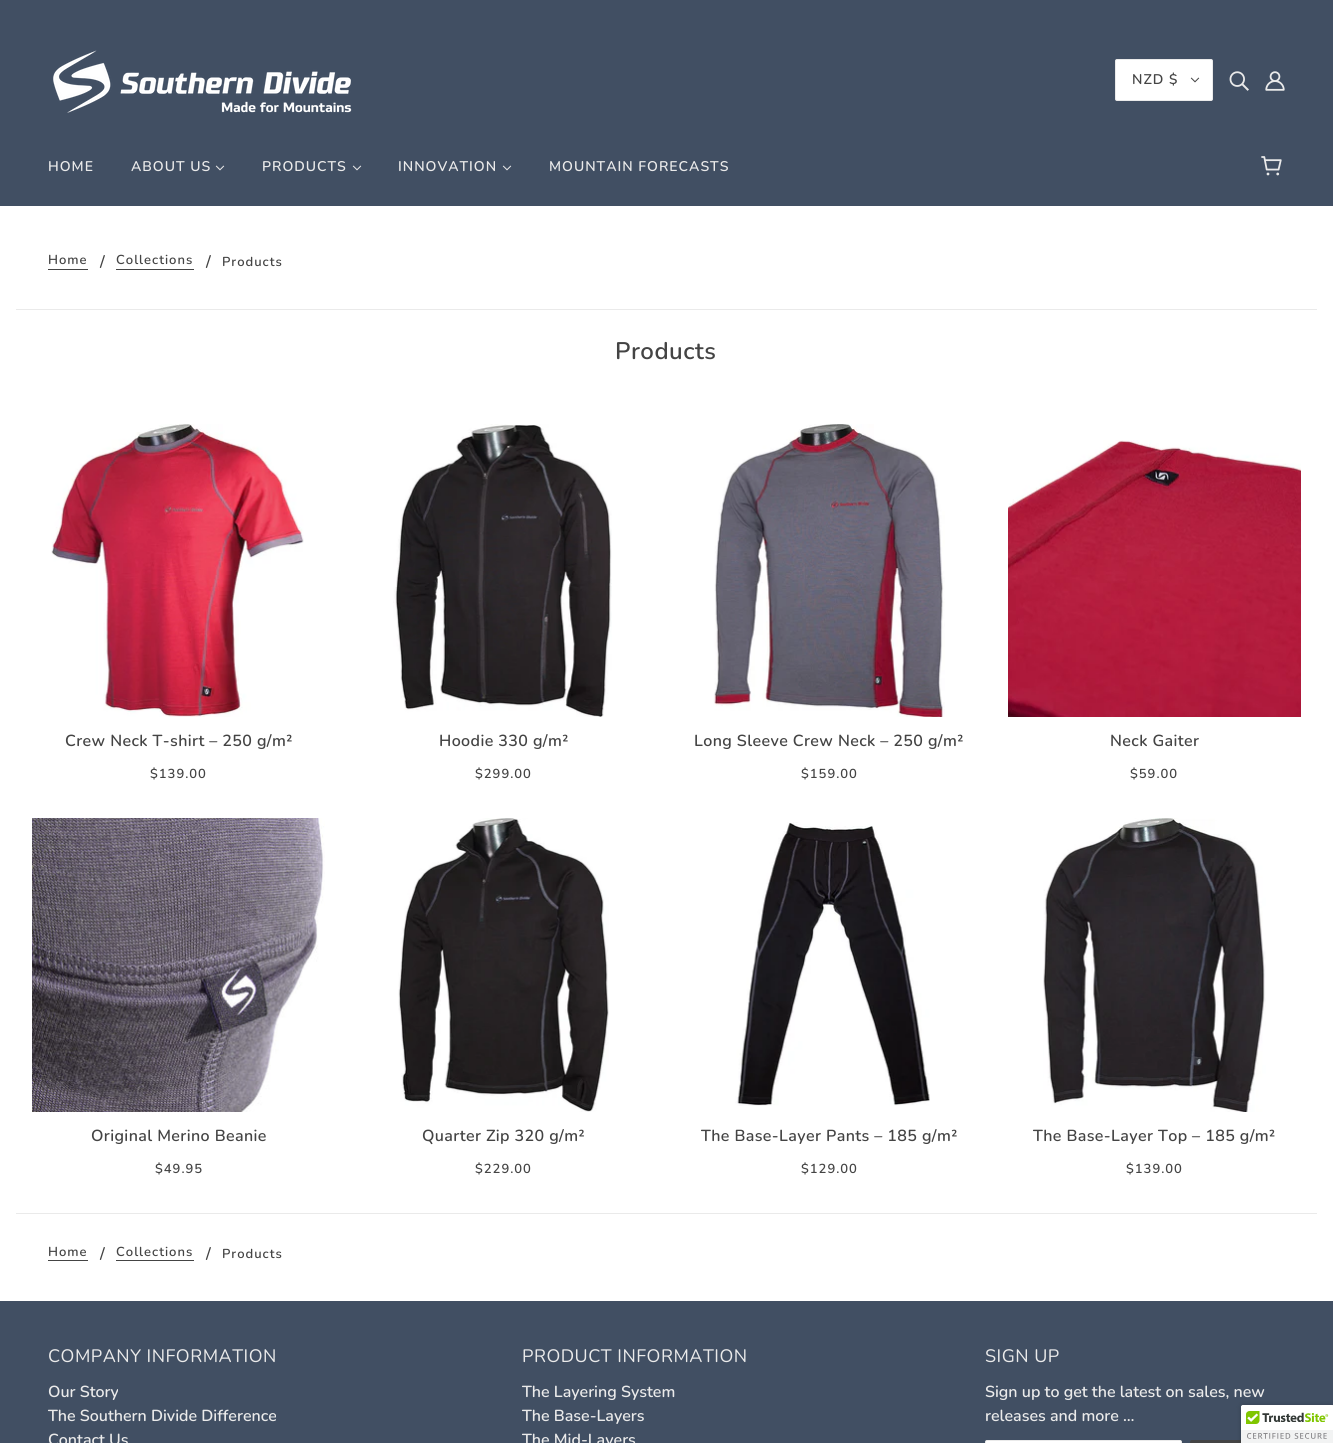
#include <cairo/cairo.h>
#include <math.h>
#include <stddef.h>

typedef struct { double x, y; const char *s; } line_t;
typedef struct { double x, y, w, h; unsigned color; } box_t;
static cairo_t *cr;

static void rgb(unsigned color)
{
	cairo_set_source_rgb(cr, (color >> 16) / 255.0, (color >> 8 & 255) / 255.0, (color & 255) / 255.0);
}

static void tracked(double x, double y, const char *s, double letter, double word)
{
	cairo_move_to(cr, x, y);
	while (*s) {
		char ch[5] = {0};
		int n = 0;
		do ch[n++] = *s++; while ((*s & 0xC0) == 0x80);
		cairo_show_text(cr, ch);
		cairo_rel_move_to(cr, letter + word * (*ch == ' '), 0);
	}
}

static void rrect(double x, double y, double w, double h, double r)
{
	cairo_new_sub_path(cr);
	cairo_arc(cr, x + w - r, y + h - r, r, 0, M_PI / 2);
	cairo_arc(cr, x + r, y + h - r, r, M_PI / 2, M_PI);
	cairo_arc(cr, x + r, y + r, r, M_PI, 1.5 * M_PI);
	cairo_arc(cr, x + w - r, y + r, r, 1.5 * M_PI, 2 * M_PI);
	cairo_close_path(cr);
}

static void soft_shadow(double x, double y, double w, double h, double r, double blur, double alpha)
{
	cairo_push_group_with_content(cr, CAIRO_CONTENT_ALPHA);
	cairo_set_operator(cr, CAIRO_OPERATOR_SOURCE);
	for (int i = 15; i >= -15 && fmin(w, h) + blur * i / 3 > 0; i -= 2) {
		double e = blur * i / 6;
		cairo_set_source_rgba(cr, 0, 0, 0, alpha * erfc((i - 1) / 8.5) / 2);
		rrect(x - e, y - e, w + 2 * e, h + 2 * e, fmax(0, fmin(r + e + blur * .6, fmin(w, h) / 2 + e)));
		cairo_fill(cr);
	}
	cairo_pattern_t *soft = cairo_pop_group(cr);
	cairo_mask(cr, soft);
	cairo_pattern_destroy(soft);
}

static void image(const char *path, double x, double y, double w, double h)
{
	cairo_surface_t *image = cairo_image_surface_create_from_png(path);
	cairo_save(cr);
	cairo_set_source_surface(cr, image, x, y);
	cairo_rectangle(cr, x, y, w, h);
	cairo_fill(cr);
	cairo_restore(cr);
	cairo_surface_destroy(image);
}

int main(void) {
	cairo_surface_t *surface = cairo_image_surface_create(CAIRO_FORMAT_RGB24, 1333, 1443);
	cr = cairo_create(surface);
	cairo_font_options_t *options = cairo_font_options_create();
	cairo_font_options_set_hint_metrics(options, CAIRO_HINT_METRICS_OFF);
	cairo_font_options_set_hint_style(options, CAIRO_HINT_STYLE_NONE);
	cairo_set_font_options(cr, options);
	cairo_set_miter_limit(cr, 4);
	rgb(0xffffff);
	cairo_paint(cr);
	rgb(0x414f63);
	cairo_rectangle(cr, 0, 0, 1333, 206);
	cairo_fill(cr);
	image("img/1.png", 53, 50, 299, 63);
	rgb(0xffffff);
	rrect(1115.5, 59.5, 97, 41, 1.5);
	cairo_fill_preserve(cr);
	rgb(0xeaeaea);
	cairo_set_line_width(cr, 1);
	cairo_stroke(cr);
	image("img/2.png", 1190, 77, 10, 6);
	image("img/3.png", 1229, 71, 20, 20);
	image("img/4.png", 1265, 71, 20, 20);
	image("img/5.png", 215, 165, 10, 6);
	image("img/5.png", 352, 165, 10, 6);
	image("img/5.png", 502, 165, 10, 6);
	image("img/6.png", 1261, 156, 21, 20);
	{
		static const box_t items[] = {
			{48, 269, 40, 1, 0x444444},
			{116, 269, 78, 1, 0x444444},
			{16, 309, 1301, 1, 0xeaeaea},
		};
		for (size_t i = 0; i < sizeof items / sizeof *items; i++) {
			rgb(items[i].color);
			cairo_rectangle(cr, items[i].x, items[i].y, items[i].w, items[i].h);
			cairo_fill(cr);
		}
	}
	image("img/7.png", 51, 424, 253, 293);
	image("img/8.png", 393, 424, 219, 293);
	image("img/9.png", 713, 424, 232, 293);
	image("img/10.png", 1008, 440, 293, 277);
	image("img/11.png", 32, 818, 293, 294);
	image("img/12.png", 398, 818, 211, 294);
	image("img/13.png", 735, 822, 195, 284);
	image("img/14.png", 1043, 818, 223, 294);
	{
		static const box_t items[] = {
			{16, 1213, 1301, 1, 0xeaeaea},
			{48, 1260, 40, 1, 0x444444},
			{116, 1260, 78, 1, 0x444444},
			{0, 1301, 1333, 142, 0x414f63},
		};
		for (size_t i = 0; i < sizeof items / sizeof *items; i++) {
			rgb(items[i].color);
			cairo_rectangle(cr, items[i].x, items[i].y, items[i].w, items[i].h);
			cairo_fill(cr);
		}
	}
	rgb(0xffffff);
	rrect(985.5, 1440.5, 196, 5, 1.5);
	cairo_fill_preserve(cr);
	rgb(0xeaeaea);
	cairo_stroke(cr);
	rgb(0x444444);
	rrect(1190, 1440, 95, 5, 2);
	cairo_fill(cr);
	rgb(0x000000);
	soft_shadow(1241, 1405, 92, 38, 2, 2.5, 0.2);
	rgb(0xffffff);
	cairo_new_path(cr);
	cairo_move_to(cr, 1243, 1405);
	cairo_line_to(cr, 1333, 1405);
	cairo_line_to(cr, 1333, 1443);
	cairo_line_to(cr, 1241, 1443);
	cairo_line_to(cr, 1241, 1407);
	cairo_curve_to(cr, 1241, 1406, 1242, 1405, 1243, 1405);
	cairo_close_path(cr);
	cairo_fill(cr);
	image("img/15.png", 1241, 1405, 92, 38);
	cairo_select_font_face(cr, "Nunito SemiBold", CAIRO_FONT_SLANT_NORMAL, CAIRO_FONT_WEIGHT_NORMAL);
	cairo_set_font_size(cr, 14);
	rgb(0x444444);
	tracked(1132, 84, "NZD $", 1, 0);
	rgb(0xeaeaea);
	{
		static const line_t items[] = {
			{48, 171, "HOME"},
			{131, 171, "ABOUT US"},
			{262, 171, "PRODUCTS"},
			{398, 171, "INNOVATION"},
			{549, 171, "MOUNTAIN FORECASTS"},
		};
		for (size_t i = 0; i < sizeof items / sizeof *items; i++) {
			tracked(items[i].x, items[i].y, items[i].s, 1, 0);
		}
	}
	cairo_set_font_size(cr, 13);
	rgb(0x444444);
	tracked(48, 264, "Home", 1, 0);
	cairo_set_font_size(cr, 16);
	cairo_move_to(cr, 100, 267);
	cairo_show_text(cr, "/");
	cairo_set_font_size(cr, 13);
	tracked(116, 264, "Collections", 1, 0);
	cairo_set_font_size(cr, 16);
	cairo_move_to(cr, 206, 267);
	cairo_show_text(cr, "/");
	cairo_set_font_size(cr, 13);
	tracked(222, 266, "Products", 1, 0);
	cairo_set_font_size(cr, 24);
	tracked(615, 359, "Products", 0.5, 0);
	cairo_set_font_size(cr, 16);
	tracked(65, 746, "Crew Neck T-shirt – 250 g/m²", 0.4, 0);
	cairo_set_font_size(cr, 13);
	tracked(150, 778, "$139.00", 1, 0);
	cairo_set_font_size(cr, 16);
	tracked(439, 746, "Hoodie 330 g/m²", 0.4, 0);
	cairo_set_font_size(cr, 13);
	tracked(475, 778, "$299.00", 1, 0);
	cairo_set_font_size(cr, 16);
	tracked(694, 746, "Long Sleeve Crew Neck – 250 g/m²", 0.4, 0);
	cairo_set_font_size(cr, 13);
	tracked(801, 778, "$159.00", 1, 0);
	cairo_set_font_size(cr, 16);
	tracked(1110, 746, "Neck Gaiter", 0.4, 0);
	cairo_set_font_size(cr, 13);
	tracked(1130, 778, "$59.00", 1, 0);
	cairo_set_font_size(cr, 16);
	tracked(91, 1141, "Original Merino Beanie", 0.4, 0);
	cairo_set_font_size(cr, 13);
	tracked(155, 1173, "$49.95", 1, 0);
	cairo_set_font_size(cr, 16);
	tracked(422, 1141, "Quarter Zip 320 g/m²", 0.4, 0);
	cairo_set_font_size(cr, 13);
	tracked(475, 1173, "$229.00", 1, 0);
	cairo_set_font_size(cr, 16);
	tracked(701, 1141, "The Base-Layer Pants – 185 g/m²", 0.4, 0);
	cairo_set_font_size(cr, 13);
	tracked(801, 1173, "$129.00", 1, 0);
	cairo_set_font_size(cr, 16);
	tracked(1033, 1141, "The Base-Layer Top – 185 g/m²", 0.4, 0);
	cairo_set_font_size(cr, 13);
	tracked(1126, 1173, "$139.00", 1, 0);
	tracked(48, 1256, "Home", 1, 0);
	cairo_set_font_size(cr, 16);
	cairo_move_to(cr, 100, 1259);
	cairo_show_text(cr, "/");
	cairo_set_font_size(cr, 13);
	tracked(116, 1256, "Collections", 1, 0);
	cairo_set_font_size(cr, 16);
	cairo_move_to(cr, 206, 1259);
	cairo_show_text(cr, "/");
	cairo_set_font_size(cr, 13);
	tracked(222, 1258, "Products", 1, 0);
	cairo_select_font_face(cr, "Nunito", CAIRO_FONT_SLANT_NORMAL, CAIRO_FONT_WEIGHT_NORMAL);
	cairo_set_font_size(cr, 18);
	rgb(0xeaeaea);
	tracked(48, 1362, "COMPANY INFORMATION", 0.5, 0);
	cairo_select_font_face(cr, "Nunito SemiBold", CAIRO_FONT_SLANT_NORMAL, CAIRO_FONT_WEIGHT_NORMAL);
	cairo_set_font_size(cr, 16);
	{
		static const line_t items[] = {
			{48, 1397, "Our Story"},
			{48, 1421, "The Southern Divide Difference"},
			{48, 1445, "Contact Us"},
		};
		for (size_t i = 0; i < sizeof items / sizeof *items; i++) {
			cairo_move_to(cr, items[i].x, items[i].y);
			cairo_show_text(cr, items[i].s);
		}
	}
	cairo_select_font_face(cr, "Nunito", CAIRO_FONT_SLANT_NORMAL, CAIRO_FONT_WEIGHT_NORMAL);
	cairo_set_font_size(cr, 18);
	tracked(522, 1362, "PRODUCT INFORMATION", 0.5, 0);
	cairo_select_font_face(cr, "Nunito SemiBold", CAIRO_FONT_SLANT_NORMAL, CAIRO_FONT_WEIGHT_NORMAL);
	cairo_set_font_size(cr, 16);
	{
		static const line_t items[] = {
			{522, 1397, "The Layering System"},
			{522, 1421, "The Base-Layers"},
			{522, 1445, "The Mid-Layers"},
		};
		for (size_t i = 0; i < sizeof items / sizeof *items; i++) {
			cairo_move_to(cr, items[i].x, items[i].y);
			cairo_show_text(cr, items[i].s);
		}
	}
	cairo_select_font_face(cr, "Nunito", CAIRO_FONT_SLANT_NORMAL, CAIRO_FONT_WEIGHT_NORMAL);
	cairo_set_font_size(cr, 18);
	tracked(985, 1362, "SIGN UP", 0.5, 0);
	cairo_select_font_face(cr, "Nunito SemiBold", CAIRO_FONT_SLANT_NORMAL, CAIRO_FONT_WEIGHT_NORMAL);
	cairo_set_font_size(cr, 16);
	cairo_move_to(cr, 985, 1397);
	cairo_show_text(cr, "Sign up to get the latest on sales, new");
	cairo_move_to(cr, 985, 1421);
	cairo_show_text(cr, "releases and more …");
	cairo_surface_write_to_png(surface, "page.png");
	cairo_font_options_destroy(options);
	cairo_destroy(cr);
	cairo_surface_destroy(surface);
	return 0;
}
